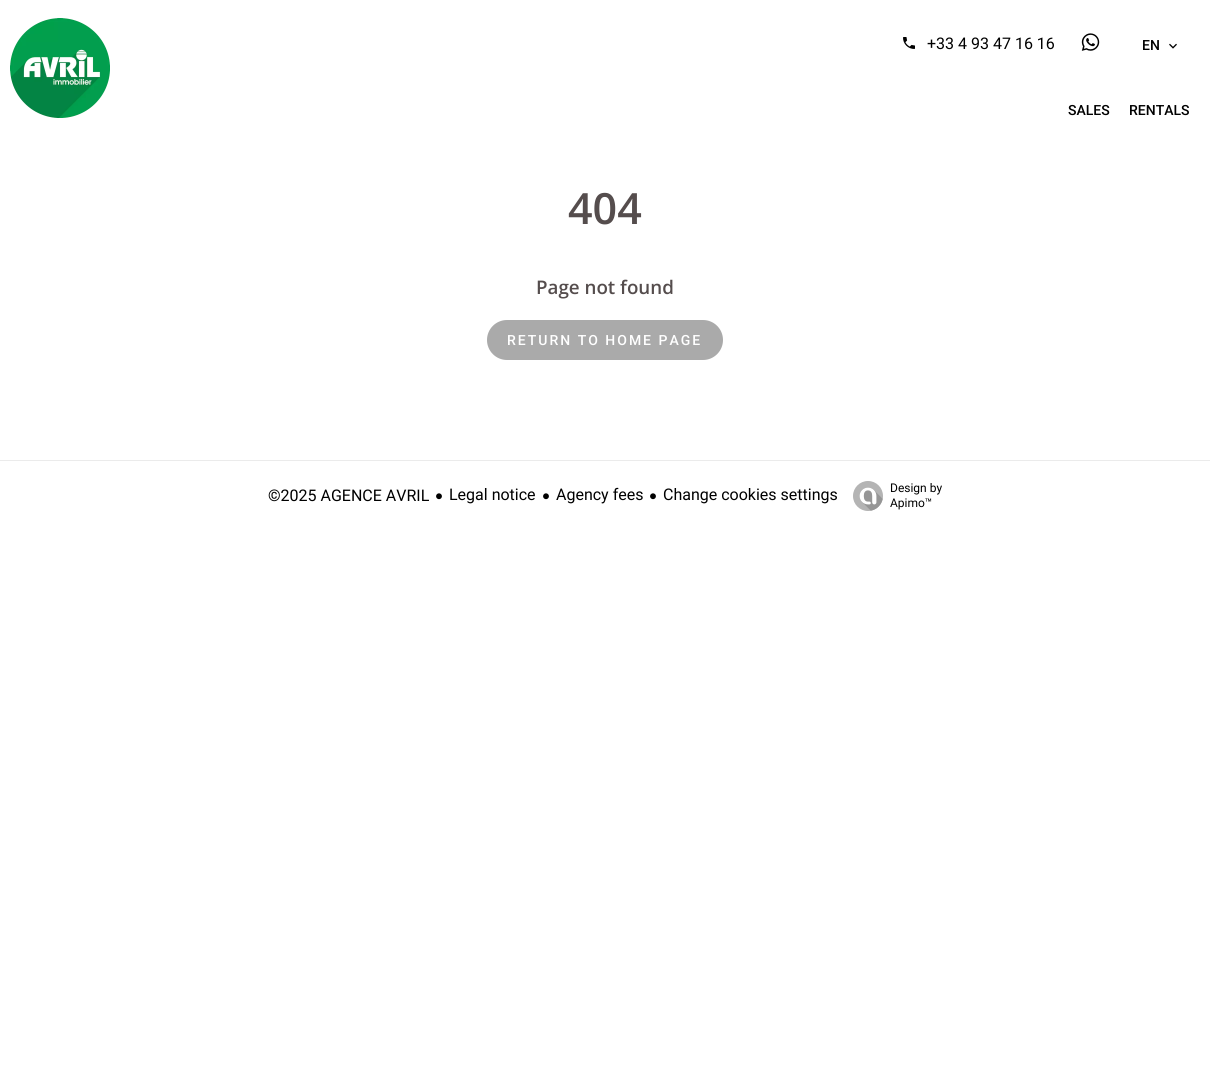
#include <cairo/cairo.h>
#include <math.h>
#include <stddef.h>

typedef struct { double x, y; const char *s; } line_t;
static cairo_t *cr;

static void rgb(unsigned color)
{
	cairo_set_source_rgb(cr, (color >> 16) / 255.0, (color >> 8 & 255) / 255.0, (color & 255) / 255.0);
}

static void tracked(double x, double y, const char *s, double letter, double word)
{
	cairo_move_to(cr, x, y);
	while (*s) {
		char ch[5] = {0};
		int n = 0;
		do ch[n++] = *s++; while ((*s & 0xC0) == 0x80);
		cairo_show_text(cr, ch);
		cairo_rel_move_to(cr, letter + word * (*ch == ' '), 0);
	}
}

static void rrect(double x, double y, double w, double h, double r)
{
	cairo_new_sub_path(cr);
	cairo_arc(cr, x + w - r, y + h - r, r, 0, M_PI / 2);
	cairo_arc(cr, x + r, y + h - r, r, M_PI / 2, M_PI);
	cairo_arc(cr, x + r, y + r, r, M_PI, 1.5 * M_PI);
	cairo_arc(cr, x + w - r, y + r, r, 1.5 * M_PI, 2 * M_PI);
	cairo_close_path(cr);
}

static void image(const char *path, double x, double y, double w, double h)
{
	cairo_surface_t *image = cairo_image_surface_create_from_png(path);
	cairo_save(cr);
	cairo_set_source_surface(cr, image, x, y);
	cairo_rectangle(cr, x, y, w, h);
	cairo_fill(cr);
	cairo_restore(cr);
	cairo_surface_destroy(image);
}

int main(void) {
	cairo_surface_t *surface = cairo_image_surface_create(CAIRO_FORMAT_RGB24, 1210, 1080);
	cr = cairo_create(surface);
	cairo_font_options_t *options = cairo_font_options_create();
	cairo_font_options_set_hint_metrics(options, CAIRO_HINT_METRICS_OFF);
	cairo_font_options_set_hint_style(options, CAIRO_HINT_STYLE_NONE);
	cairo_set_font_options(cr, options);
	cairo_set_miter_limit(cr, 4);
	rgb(0xffffff);
	cairo_paint(cr);
	image("img/1.png", 10, 18, 100, 100);
	image("img/2.png", 903, 37, 12, 12);
	image("img/3.png", 1081, 33, 19, 18);
	image("img/4.png", 1169, 43, 8, 6);
	rgb(0xaaaaaa);
	rrect(487, 320, 236, 40, 20);
	cairo_fill(cr);
	rgb(0xebebeb);
	cairo_rectangle(cr, 0, 460, 1210, 1);
	cairo_fill(cr);
	image("img/5.png", 436, 493, 6, 7);
	image("img/5.png", 543, 493, 6, 7);
	image("img/5.png", 650, 493, 6, 7);
	image("img/6.png", 853, 481, 30, 30);
	cairo_select_font_face(cr, "Roboto", CAIRO_FONT_SLANT_NORMAL, CAIRO_FONT_WEIGHT_NORMAL);
	cairo_set_font_size(cr, 16);
	rgb(0x000000);
	cairo_move_to(cr, 927, 49);
	cairo_show_text(cr, "+33 4 93 47 16 16");
	cairo_select_font_face(cr, "Roboto Medium", CAIRO_FONT_SLANT_NORMAL, CAIRO_FONT_WEIGHT_NORMAL);
	cairo_set_font_size(cr, 14);
	{
		static const line_t items[] = {
			{1142, 50, "EN"},
			{1068, 115, "SALES"},
			{1129, 115, "RENTALS"},
		};
		for (size_t i = 0; i < sizeof items / sizeof *items; i++) {
			cairo_move_to(cr, items[i].x, items[i].y);
			cairo_show_text(cr, items[i].s);
		}
	}
	cairo_select_font_face(cr, "Open Sans SemiBold", CAIRO_FONT_SLANT_NORMAL, CAIRO_FONT_WEIGHT_NORMAL);
	cairo_set_font_size(cr, 43);
	rgb(0x554d4d);
	cairo_move_to(cr, 568, 224);
	cairo_show_text(cr, "404");
	cairo_set_font_size(cr, 18.75);
	cairo_move_to(cr, 536, 294);
	cairo_show_text(cr, "Page not found");
	cairo_select_font_face(cr, "Roboto Medium", CAIRO_FONT_SLANT_NORMAL, CAIRO_FONT_WEIGHT_NORMAL);
	cairo_set_font_size(cr, 14);
	rgb(0xffffff);
	tracked(507, 345, "RETURN TO HOME PAGE", 2, 0);
	cairo_select_font_face(cr, "Roboto", CAIRO_FONT_SLANT_NORMAL, CAIRO_FONT_WEIGHT_NORMAL);
	cairo_set_font_size(cr, 16);
	rgb(0x000000);
	{
		static const line_t items[] = {
			{268, 501, "©2025 AGENCE AVRIL"},
			{449, 500, "Legal notice"},
			{556, 500, "Agency fees"},
			{663, 500, "Change cookies settings"},
		};
		for (size_t i = 0; i < sizeof items / sizeof *items; i++) {
			cairo_move_to(cr, items[i].x, items[i].y);
			cairo_show_text(cr, items[i].s);
		}
	}
	cairo_set_font_size(cr, 12);
	cairo_move_to(cr, 890, 492);
	cairo_show_text(cr, "Design by");
	cairo_move_to(cr, 890, 507);
	cairo_show_text(cr, "Apimo™");
	cairo_surface_write_to_png(surface, "page.png");
	cairo_font_options_destroy(options);
	cairo_destroy(cr);
	cairo_surface_destroy(surface);
	return 0;
}
